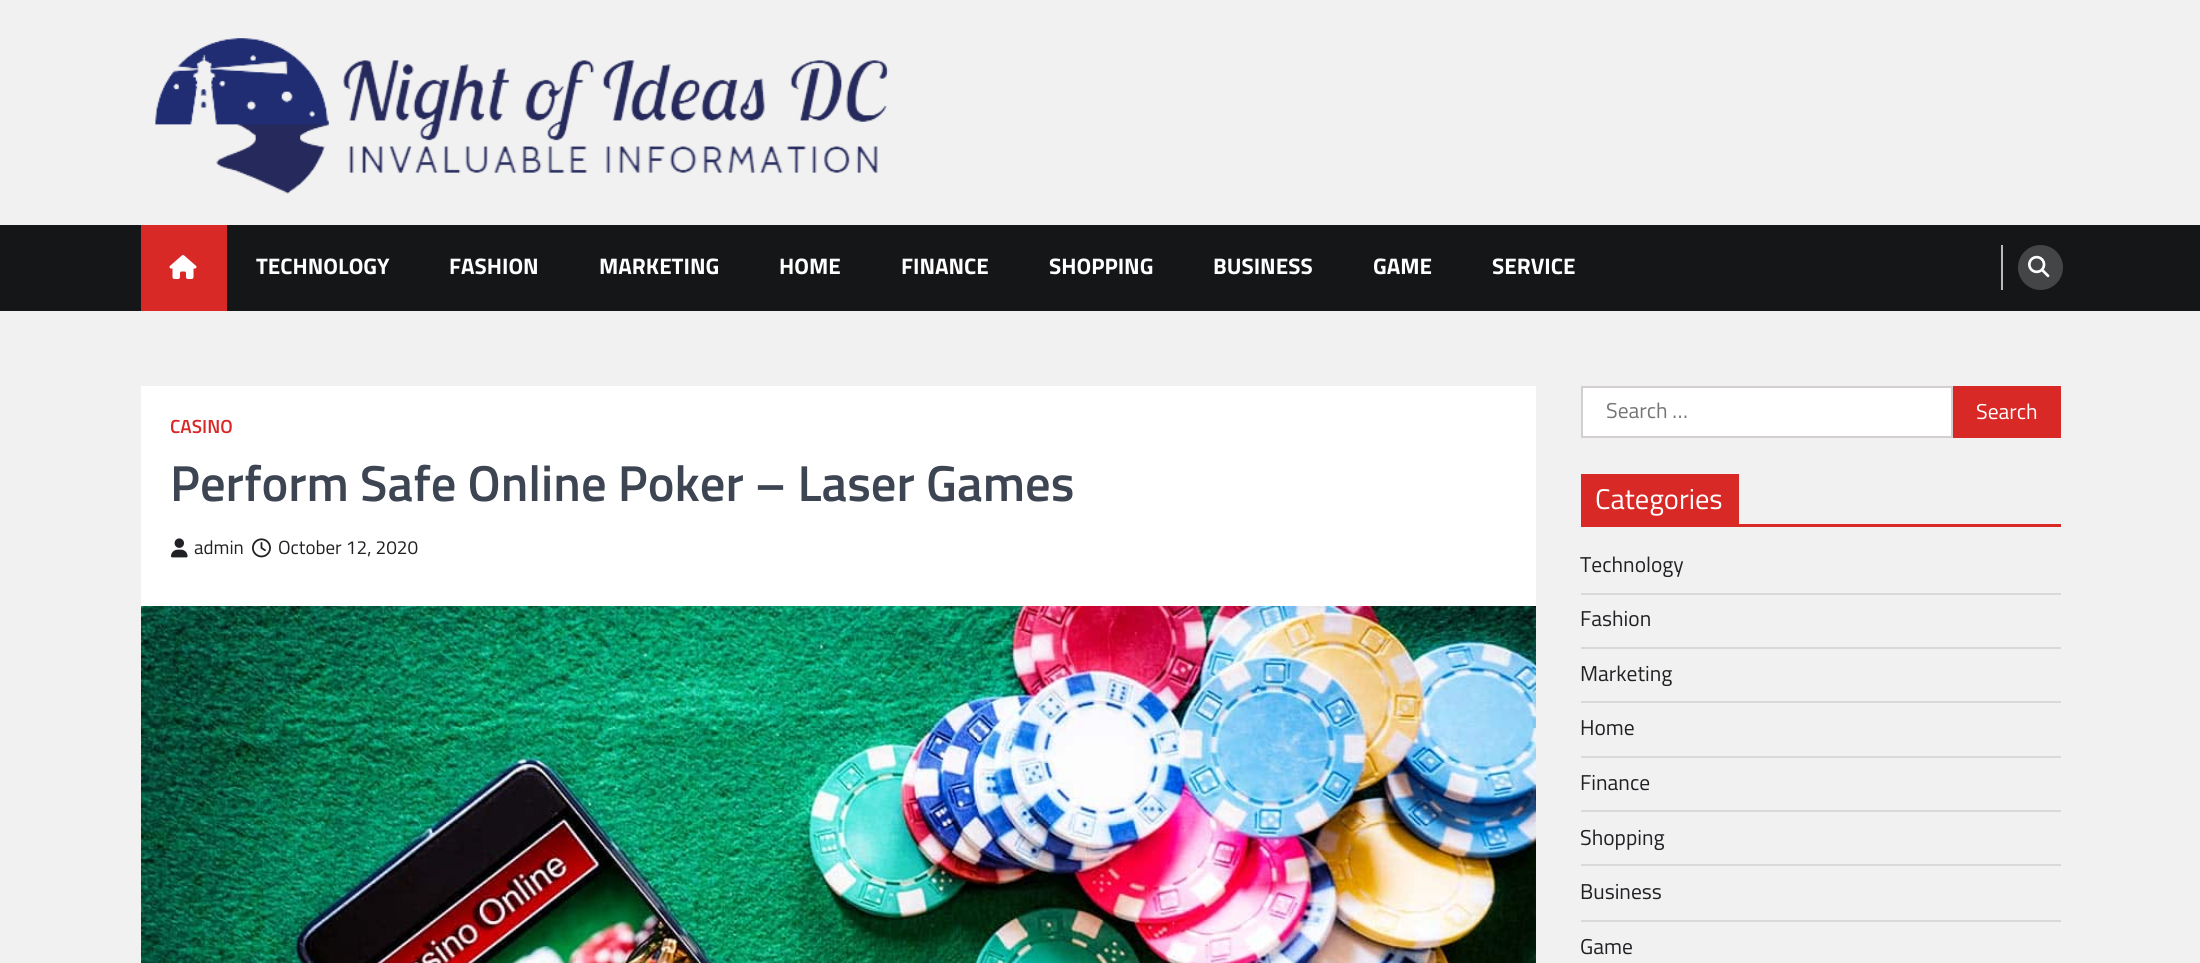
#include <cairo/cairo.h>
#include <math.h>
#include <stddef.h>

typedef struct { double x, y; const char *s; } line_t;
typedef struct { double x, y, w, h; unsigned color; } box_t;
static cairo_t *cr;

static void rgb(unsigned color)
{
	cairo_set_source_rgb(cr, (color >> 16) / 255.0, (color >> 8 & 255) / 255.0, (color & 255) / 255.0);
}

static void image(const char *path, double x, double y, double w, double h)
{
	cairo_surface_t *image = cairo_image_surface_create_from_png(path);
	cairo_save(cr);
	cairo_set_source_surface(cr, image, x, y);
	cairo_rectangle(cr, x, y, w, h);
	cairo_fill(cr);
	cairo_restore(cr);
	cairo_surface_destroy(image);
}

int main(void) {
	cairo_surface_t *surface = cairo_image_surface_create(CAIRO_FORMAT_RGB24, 2200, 963);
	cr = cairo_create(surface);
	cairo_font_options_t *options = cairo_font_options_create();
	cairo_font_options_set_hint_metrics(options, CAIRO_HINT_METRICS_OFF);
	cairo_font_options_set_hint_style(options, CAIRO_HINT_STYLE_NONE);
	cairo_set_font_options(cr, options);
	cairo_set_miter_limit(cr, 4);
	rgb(0xf1f1f1);
	cairo_paint(cr);
	image("img/1.png", 155, 38, 734, 156);
	rgb(0x151618);
	cairo_rectangle(cr, 0, 225, 2200, 86);
	cairo_fill(cr);
	rgb(0xd82926);
	cairo_rectangle(cr, 141, 225, 86, 86);
	cairo_fill(cr);
	image("img/2.png", 169, 255, 28, 24);
	rgb(0xb9b9ba);
	cairo_rectangle(cr, 2001, 245, 2, 45);
	cairo_fill(cr);
	rgb(0x444546);
	cairo_arc(cr, 2040.5, 267.5, 22.5, 0, 2 * M_PI);
	cairo_fill(cr);
	image("img/3.png", 2028, 255, 22, 23);
	rgb(0xffffff);
	cairo_rectangle(cr, 141, 386, 1395, 220);
	cairo_fill(cr);
	image("img/4.png", 171, 538, 17, 20);
	image("img/5.png", 252, 538, 19, 20);
	image("img/6.png", 141, 606, 1395, 357);
	cairo_rectangle(cr, 1582, 387, 370, 50);
	cairo_fill_preserve(cr);
	rgb(0xd3ced2);
	cairo_stroke(cr);
	{
		static const box_t items[] = {
			{1953, 386, 108, 52, 0xd82926},
			{1581, 524, 480, 3, 0xd82926},
			{1581, 474, 158, 50, 0xd82926},
			{1581, 593, 480, 2, 0xd9d9d9},
			{1581, 647, 480, 2, 0xd9d9d9},
			{1581, 701, 480, 2, 0xd9d9d9},
			{1581, 756, 480, 2, 0xd9d9d9},
			{1581, 810, 480, 2, 0xd9d9d9},
			{1581, 864, 480, 2, 0xd9d9d9},
			{1581, 920, 480, 2, 0xd9d9d9},
		};
		for (size_t i = 0; i < sizeof items / sizeof *items; i++) {
			rgb(items[i].color);
			cairo_rectangle(cr, items[i].x, items[i].y, items[i].w, items[i].h);
			cairo_fill(cr);
		}
	}
	cairo_select_font_face(cr, "Titillium Web", CAIRO_FONT_SLANT_NORMAL, CAIRO_FONT_WEIGHT_BOLD);
	cairo_set_font_size(cr, 22.5);
	rgb(0xffffff);
	{
		static const line_t items[] = {
			{256, 274, "TECHNOLOGY"},
			{449, 274, "FASHION"},
			{599, 274, "MARKETING"},
			{779, 274, "HOME"},
			{901, 274, "FINANCE"},
			{1049, 274, "SHOPPING"},
			{1213, 274, "BUSINESS"},
			{1373, 274, "GAME"},
			{1492, 274, "SERVICE"},
		};
		for (size_t i = 0; i < sizeof items / sizeof *items; i++) {
			cairo_move_to(cr, items[i].x, items[i].y);
			cairo_show_text(cr, items[i].s);
		}
	}
	cairo_select_font_face(cr, "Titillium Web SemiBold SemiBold", CAIRO_FONT_SLANT_NORMAL, CAIRO_FONT_WEIGHT_NORMAL);
	cairo_set_font_size(cr, 19);
	rgb(0xd82926);
	cairo_move_to(cr, 170, 433);
	cairo_show_text(cr, "CASINO");
	cairo_set_font_size(cr, 50.6);
	rgb(0x3d4452);
	cairo_move_to(cr, 170, 501);
	cairo_show_text(cr, "Perform Safe Online Poker – Laser Games");
	cairo_select_font_face(cr, "Titillium Web", CAIRO_FONT_SLANT_NORMAL, CAIRO_FONT_WEIGHT_NORMAL);
	cairo_set_font_size(cr, 19);
	rgb(0x202124);
	cairo_move_to(cr, 194, 554);
	cairo_show_text(cr, "admin");
	cairo_move_to(cr, 278, 554);
	cairo_show_text(cr, "October 12, 2020");
	cairo_set_font_size(cr, 21.5);
	rgb(0x757575);
	cairo_move_to(cr, 1606, 418);
	cairo_show_text(cr, "Search …");
	rgb(0xffffff);
	cairo_move_to(cr, 1976, 419);
	cairo_show_text(cr, "Search");
	cairo_set_font_size(cr, 28.5);
	cairo_move_to(cr, 1595, 509);
	cairo_show_text(cr, "Categories");
	cairo_set_font_size(cr, 21.5);
	rgb(0x202124);
	{
		static const line_t items[] = {
			{1580, 572, "Technology"},
			{1580, 626, "Fashion"},
			{1580, 681, "Marketing"},
			{1580, 735, "Home"},
			{1580, 790, "Finance"},
			{1580, 845, "Shopping"},
			{1580, 899, "Business"},
			{1580, 954, "Game"},
		};
		for (size_t i = 0; i < sizeof items / sizeof *items; i++) {
			cairo_move_to(cr, items[i].x, items[i].y);
			cairo_show_text(cr, items[i].s);
		}
	}
	cairo_surface_write_to_png(surface, "page.png");
	cairo_font_options_destroy(options);
	cairo_destroy(cr);
	cairo_surface_destroy(surface);
	return 0;
}
